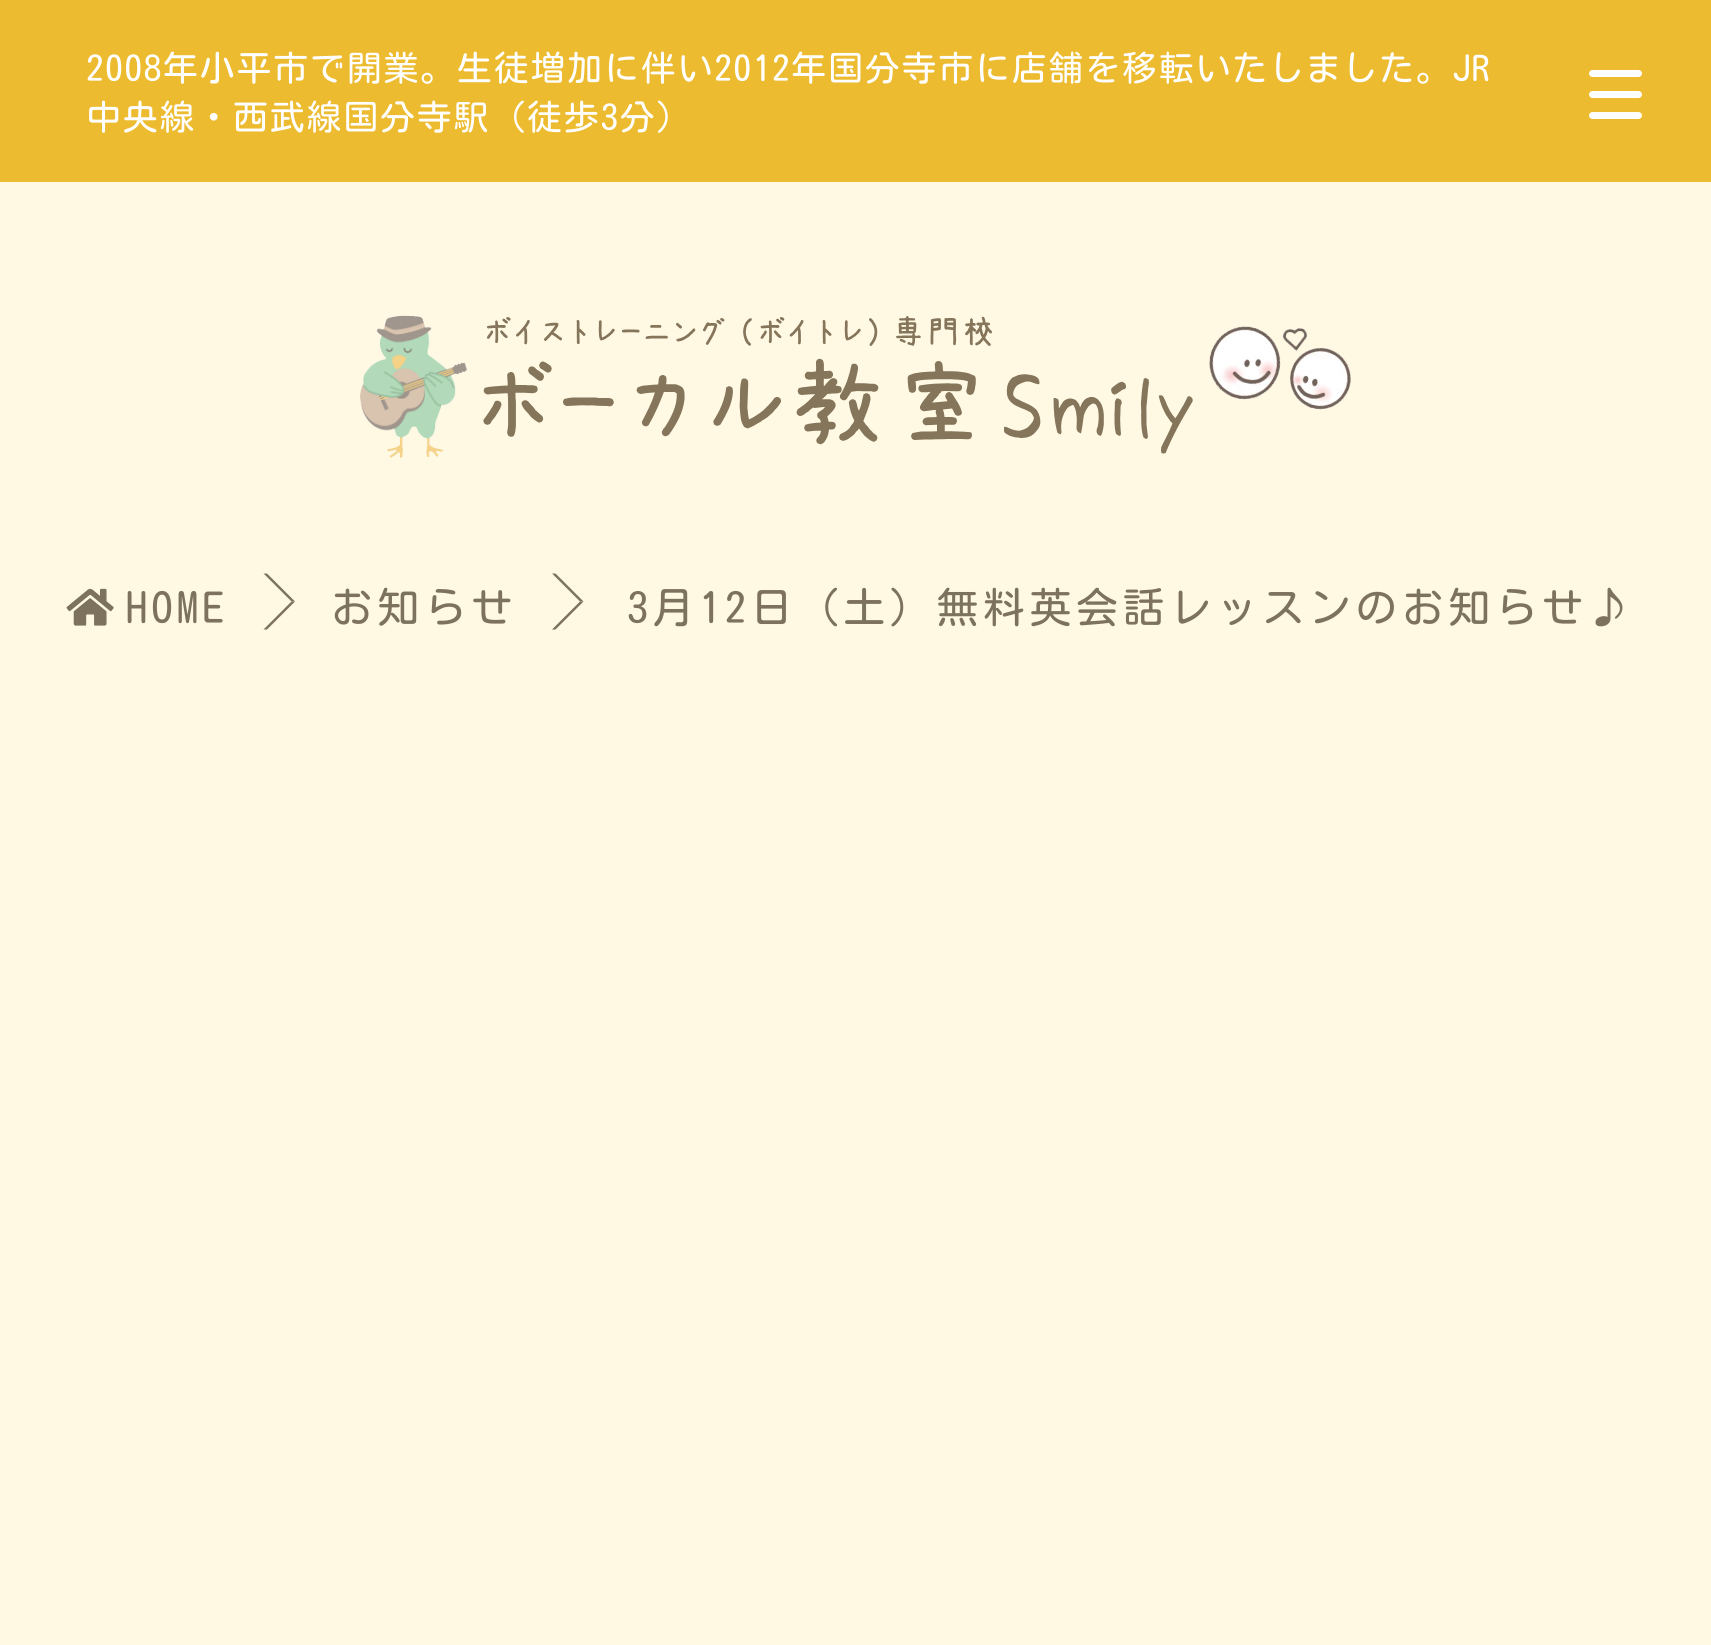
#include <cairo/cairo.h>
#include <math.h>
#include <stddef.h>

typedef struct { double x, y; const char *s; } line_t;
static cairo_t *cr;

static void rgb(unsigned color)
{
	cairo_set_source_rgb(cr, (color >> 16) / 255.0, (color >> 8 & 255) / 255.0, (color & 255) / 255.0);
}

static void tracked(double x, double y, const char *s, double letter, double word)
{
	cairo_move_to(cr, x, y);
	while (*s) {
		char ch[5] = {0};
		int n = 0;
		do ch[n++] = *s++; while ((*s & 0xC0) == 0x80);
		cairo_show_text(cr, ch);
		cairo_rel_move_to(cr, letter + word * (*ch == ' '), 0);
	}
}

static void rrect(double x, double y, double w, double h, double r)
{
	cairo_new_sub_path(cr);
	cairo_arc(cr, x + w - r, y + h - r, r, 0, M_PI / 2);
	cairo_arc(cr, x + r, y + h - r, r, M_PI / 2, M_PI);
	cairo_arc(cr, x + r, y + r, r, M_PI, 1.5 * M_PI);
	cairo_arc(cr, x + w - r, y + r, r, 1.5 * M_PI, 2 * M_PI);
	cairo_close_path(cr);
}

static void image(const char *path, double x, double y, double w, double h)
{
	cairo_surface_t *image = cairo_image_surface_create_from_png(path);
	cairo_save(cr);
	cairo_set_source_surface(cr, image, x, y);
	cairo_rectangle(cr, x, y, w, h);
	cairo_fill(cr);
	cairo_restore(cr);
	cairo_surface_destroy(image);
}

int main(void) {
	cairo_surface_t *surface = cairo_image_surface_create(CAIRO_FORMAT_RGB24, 1711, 1645);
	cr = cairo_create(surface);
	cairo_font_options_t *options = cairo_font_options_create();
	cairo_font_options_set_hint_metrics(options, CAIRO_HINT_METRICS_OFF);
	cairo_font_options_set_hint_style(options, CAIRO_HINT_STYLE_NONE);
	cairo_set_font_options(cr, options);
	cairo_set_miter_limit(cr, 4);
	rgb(0xfff8e2);
	cairo_paint(cr);
	rgb(0xecbb30);
	cairo_rectangle(cr, 0, 0, 1711, 182);
	cairo_fill(cr);
	rgb(0xffffff);
	rrect(1589, 70, 53, 7, 3.5);
	cairo_fill(cr);
	rrect(1589, 91, 53, 7, 3.5);
	cairo_fill(cr);
	rrect(1589, 112, 53, 7, 3.5);
	cairo_fill(cr);
	image("img/1.png", 360, 315, 991, 143);
	image("img/2.png", 66, 588, 48, 38);
	rgb(0x7d725d);
	cairo_new_path(cr);
	cairo_move_to(cr, 263.5, 573.5);
	cairo_line_to(cr, 267, 573.5);
	cairo_line_to(cr, 295, 601.5);
	cairo_line_to(cr, 291.5, 601.5);
	cairo_close_path(cr);
	cairo_fill(cr);
	cairo_new_path(cr);
	cairo_move_to(cr, 291.5, 601.5);
	cairo_line_to(cr, 295, 601.5);
	cairo_line_to(cr, 267, 629.5);
	cairo_line_to(cr, 263.5, 629.5);
	cairo_close_path(cr);
	cairo_fill(cr);
	cairo_new_path(cr);
	cairo_move_to(cr, 552, 573.5);
	cairo_line_to(cr, 555.5, 573.5);
	cairo_line_to(cr, 583.5, 601.5);
	cairo_line_to(cr, 580, 601.5);
	cairo_close_path(cr);
	cairo_fill(cr);
	cairo_new_path(cr);
	cairo_move_to(cr, 580, 601.5);
	cairo_line_to(cr, 583.5, 601.5);
	cairo_line_to(cr, 555.5, 629.5);
	cairo_line_to(cr, 552, 629.5);
	cairo_close_path(cr);
	cairo_fill(cr);
	cairo_select_font_face(cr, "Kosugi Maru", CAIRO_FONT_SLANT_NORMAL, CAIRO_FONT_WEIGHT_NORMAL);
	cairo_set_font_size(cr, 35);
	rgb(0xffffff);
	tracked(86, 81, "2008年小平市で開業。生徒増加に伴い2012年国分寺市に店舗を移転いたしました。JR", 1.75, 0);
	tracked(86, 130, "中央線・西武線国分寺駅（徒歩3分）", 1.75, 0);
	cairo_set_font_size(cr, 42);
	rgb(0x7d725d);
	{
		static const line_t items[] = {
			{126, 623, "HOME"},
			{331, 623, "お知らせ"},
			{627, 623, "3月12日（土）無料英会話レッスンのお知らせ♪"},
		};
		for (size_t i = 0; i < sizeof items / sizeof *items; i++) {
			tracked(items[i].x, items[i].y, items[i].s, 4.55, 0);
		}
	}
	cairo_surface_write_to_png(surface, "page.png");
	cairo_font_options_destroy(options);
	cairo_destroy(cr);
	cairo_surface_destroy(surface);
	return 0;
}
